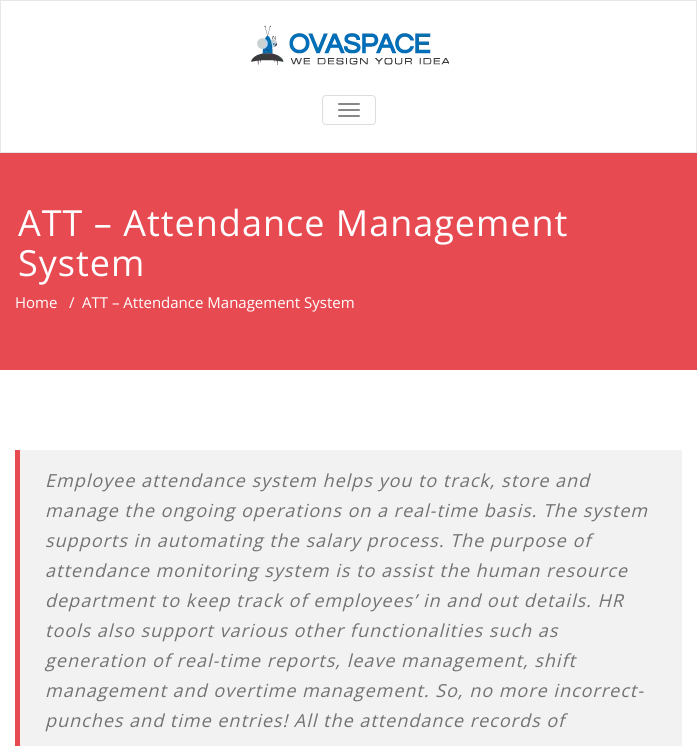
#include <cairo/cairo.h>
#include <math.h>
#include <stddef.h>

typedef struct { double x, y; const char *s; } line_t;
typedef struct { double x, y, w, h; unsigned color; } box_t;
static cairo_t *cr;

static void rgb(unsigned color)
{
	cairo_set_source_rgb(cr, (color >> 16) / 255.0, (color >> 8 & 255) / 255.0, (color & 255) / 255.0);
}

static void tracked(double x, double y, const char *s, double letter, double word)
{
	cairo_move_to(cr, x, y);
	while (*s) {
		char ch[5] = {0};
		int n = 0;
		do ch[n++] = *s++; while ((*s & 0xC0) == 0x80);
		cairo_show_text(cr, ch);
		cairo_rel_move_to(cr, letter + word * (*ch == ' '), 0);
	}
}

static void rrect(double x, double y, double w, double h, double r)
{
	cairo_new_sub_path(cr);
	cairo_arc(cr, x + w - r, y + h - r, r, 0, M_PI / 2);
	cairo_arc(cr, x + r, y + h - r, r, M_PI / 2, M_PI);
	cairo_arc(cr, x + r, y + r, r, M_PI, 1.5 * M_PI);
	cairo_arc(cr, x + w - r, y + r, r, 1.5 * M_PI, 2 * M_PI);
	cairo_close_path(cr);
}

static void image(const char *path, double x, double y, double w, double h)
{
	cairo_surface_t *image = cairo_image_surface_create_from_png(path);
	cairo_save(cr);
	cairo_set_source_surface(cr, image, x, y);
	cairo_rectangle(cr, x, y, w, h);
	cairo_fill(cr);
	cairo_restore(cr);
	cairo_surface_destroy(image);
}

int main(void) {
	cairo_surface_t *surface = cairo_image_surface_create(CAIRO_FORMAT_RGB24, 697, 746);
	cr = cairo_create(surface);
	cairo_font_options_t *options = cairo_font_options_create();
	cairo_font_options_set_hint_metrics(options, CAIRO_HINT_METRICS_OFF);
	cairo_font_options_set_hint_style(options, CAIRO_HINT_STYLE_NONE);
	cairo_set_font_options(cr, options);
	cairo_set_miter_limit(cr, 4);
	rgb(0xffffff);
	cairo_paint(cr);
	cairo_rectangle(cr, 0.5, 0.5, 696, 152);
	rgb(0xe7e7e7);
	cairo_set_line_width(cr, 1);
	cairo_stroke(cr);
	image("img/1.png", 251, 25, 198, 40);
	rrect(322.5, 95.5, 53, 29, 3.5);
	rgb(0xdddddd);
	cairo_stroke(cr);
	rgb(0x888888);
	rrect(338, 103, 22, 2, 1);
	cairo_fill(cr);
	rrect(338, 109, 22, 2, 1);
	cairo_fill(cr);
	rrect(338, 115, 22, 2, 1);
	cairo_fill(cr);
	{
		static const box_t items[] = {
			{0, 153, 697, 217, 0xe84a52},
			{20, 450, 662, 296, 0xf2f2f2},
			{15, 450, 5, 296, 0xe84a52},
		};
		for (size_t i = 0; i < sizeof items / sizeof *items; i++) {
			rgb(items[i].color);
			cairo_rectangle(cr, items[i].x, items[i].y, items[i].w, items[i].h);
			cairo_fill(cr);
		}
	}
	cairo_select_font_face(cr, "Open Sans", CAIRO_FONT_SLANT_NORMAL, CAIRO_FONT_WEIGHT_NORMAL);
	cairo_set_font_size(cr, 36);
	rgb(0xffffff);
	tracked(18, 236, "ATT – Attendance Management", 1, 0);
	tracked(18, 276, "System", 1, 0);
	cairo_set_font_size(cr, 15);
	{
		static const line_t items[] = {
			{15, 308, "Home"},
			{69, 308, "/"},
			{82, 308, "ATT – Attendance Management System"},
		};
		for (size_t i = 0; i < sizeof items / sizeof *items; i++) {
			cairo_move_to(cr, items[i].x, items[i].y);
			cairo_show_text(cr, items[i].s);
		}
	}
	cairo_select_font_face(cr, "Open Sans", CAIRO_FONT_SLANT_ITALIC, CAIRO_FONT_WEIGHT_NORMAL);
	cairo_set_font_size(cr, 18);
	rgb(0x727272);
	{
		static const line_t items[] = {
			{45, 487, "Employee attendance system helps you to track, store and"},
			{45, 517, "manage the ongoing operations on a real-time basis. The system"},
			{45, 547, "supports in automating the salary process. The purpose of"},
			{45, 577, "attendance monitoring system is to assist the human resource"},
			{45, 607, "department to keep track of employees’ in and out details. HR"},
			{45, 637, "tools also support various other functionalities such as"},
			{45, 667, "generation of real-time reports, leave management, shift"},
			{45, 697, "management and overtime management. So, no more incorrect-"},
			{45, 727, "punches and time entries! All the attendance records of"},
		};
		for (size_t i = 0; i < sizeof items / sizeof *items; i++) {
			tracked(items[i].x, items[i].y, items[i].s, 1, 0);
		}
	}
	cairo_surface_write_to_png(surface, "page.png");
	cairo_font_options_destroy(options);
	cairo_destroy(cr);
	cairo_surface_destroy(surface);
	return 0;
}
